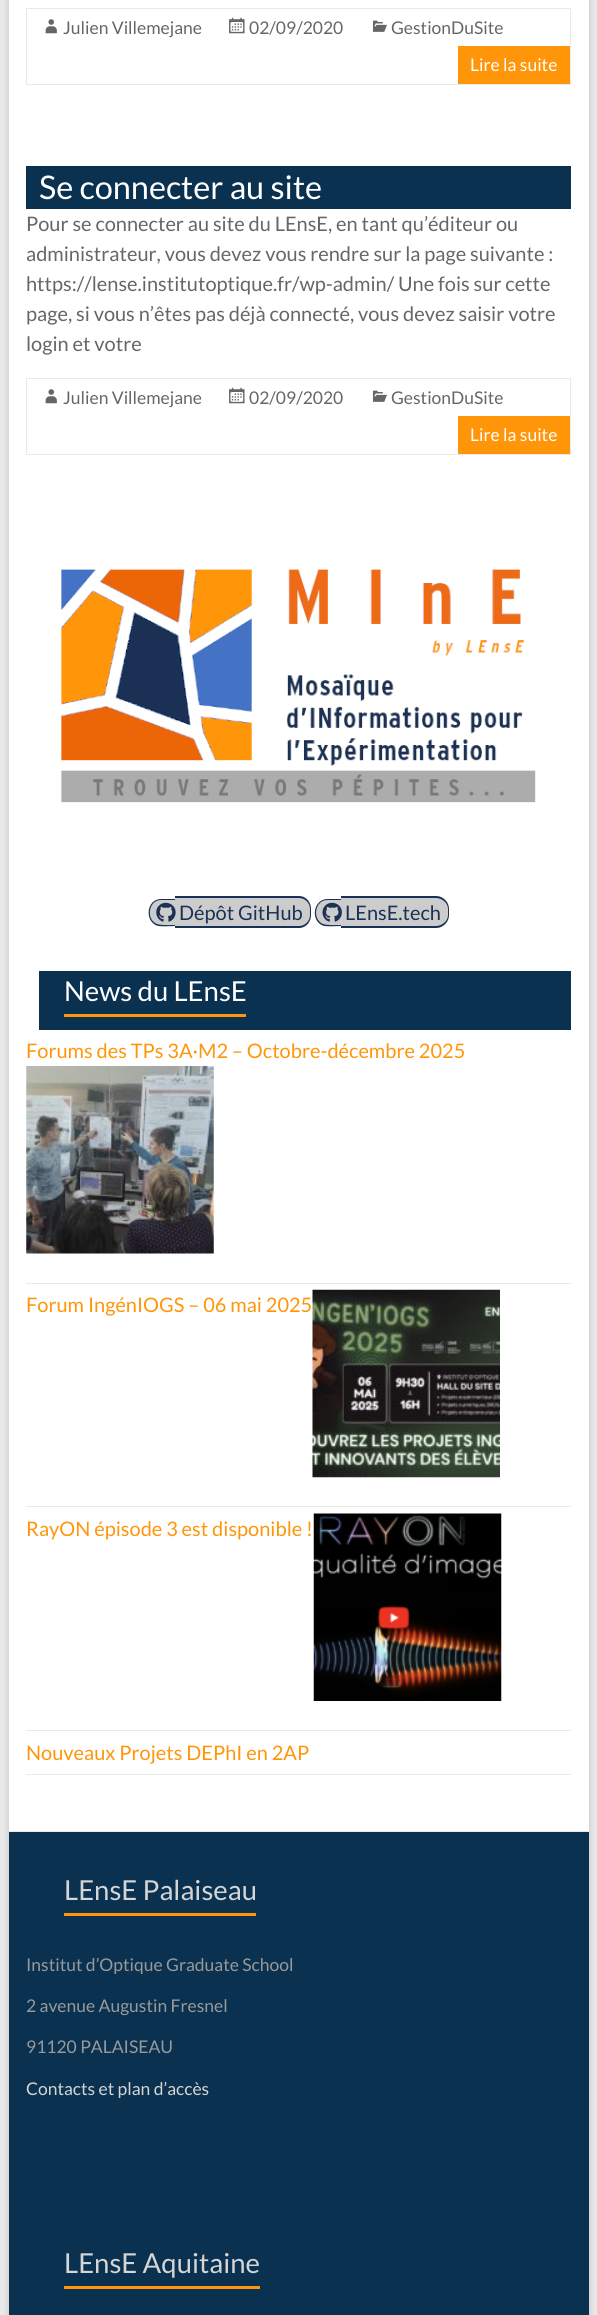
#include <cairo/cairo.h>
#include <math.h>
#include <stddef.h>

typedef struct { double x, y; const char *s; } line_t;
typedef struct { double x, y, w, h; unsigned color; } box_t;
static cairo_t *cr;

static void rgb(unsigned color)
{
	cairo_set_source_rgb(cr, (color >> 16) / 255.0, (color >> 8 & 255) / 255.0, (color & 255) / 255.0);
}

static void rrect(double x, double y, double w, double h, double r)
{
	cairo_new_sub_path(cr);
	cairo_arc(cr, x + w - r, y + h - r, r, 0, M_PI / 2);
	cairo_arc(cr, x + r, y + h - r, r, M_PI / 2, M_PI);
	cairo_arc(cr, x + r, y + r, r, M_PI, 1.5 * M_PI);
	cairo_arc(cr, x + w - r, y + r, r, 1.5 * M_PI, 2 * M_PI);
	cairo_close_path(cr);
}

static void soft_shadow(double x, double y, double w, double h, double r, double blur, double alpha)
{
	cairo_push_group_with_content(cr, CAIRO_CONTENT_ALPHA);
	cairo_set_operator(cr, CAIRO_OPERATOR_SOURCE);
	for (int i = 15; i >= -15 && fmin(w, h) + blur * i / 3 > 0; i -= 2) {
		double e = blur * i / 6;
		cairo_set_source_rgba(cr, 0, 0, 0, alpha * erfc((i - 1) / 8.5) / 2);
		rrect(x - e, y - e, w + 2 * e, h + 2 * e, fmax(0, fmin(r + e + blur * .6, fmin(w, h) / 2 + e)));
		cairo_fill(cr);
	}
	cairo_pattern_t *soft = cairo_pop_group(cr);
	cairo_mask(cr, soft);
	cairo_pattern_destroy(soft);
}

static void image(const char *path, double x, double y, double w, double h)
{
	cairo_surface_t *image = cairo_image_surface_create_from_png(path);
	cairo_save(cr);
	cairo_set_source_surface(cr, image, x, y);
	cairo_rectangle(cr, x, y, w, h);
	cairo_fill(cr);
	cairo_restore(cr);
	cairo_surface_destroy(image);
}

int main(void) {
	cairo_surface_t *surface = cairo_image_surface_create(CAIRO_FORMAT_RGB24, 597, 2315);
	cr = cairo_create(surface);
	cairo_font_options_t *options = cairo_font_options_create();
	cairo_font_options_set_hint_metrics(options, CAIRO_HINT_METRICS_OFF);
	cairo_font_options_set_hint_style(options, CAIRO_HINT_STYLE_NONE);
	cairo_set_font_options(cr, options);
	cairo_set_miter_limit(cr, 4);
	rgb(0xeaeaea);
	cairo_paint(cr);
	rgb(0x646464);
	soft_shadow(9, -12, 580, 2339, 0, 4, 0.3);
	rgb(0xffffff);
	cairo_rectangle(cr, 9, 0, 580, 1831);
	cairo_fill(cr);
	cairo_rectangle(cr, 26.5, 8.5, 544, 76);
	rgb(0xeaeaea);
	cairo_set_line_width(cr, 1);
	cairo_stroke(cr);
	image("img/1.png", 45, 19, 12, 15);
	image("img/2.png", 229, 17, 16, 17);
	image("img/3.png", 372, 20, 15, 12);
	rgb(0xff960a);
	cairo_rectangle(cr, 458, 46, 112, 38);
	cairo_fill(cr);
	rgb(0x0a3250);
	cairo_rectangle(cr, 26, 166, 545, 43);
	cairo_fill(cr);
	cairo_rectangle(cr, 26.5, 378.5, 544, 76);
	rgb(0xeaeaea);
	cairo_stroke(cr);
	image("img/1.png", 45, 389, 12, 15);
	image("img/2.png", 229, 387, 16, 17);
	image("img/3.png", 372, 390, 15, 12);
	rgb(0xff960a);
	cairo_rectangle(cr, 458, 416, 112, 38);
	cairo_fill(cr);
	image("img/4.png", 61, 569, 475, 234);
	rgb(0xcccccc);
	cairo_new_path(cr);
	cairo_move_to(cr, 162, 899);
	cairo_line_to(cr, 175, 899);
	cairo_line_to(cr, 175, 926);
	cairo_line_to(cr, 162, 926);
	cairo_curve_to(cr, 155, 926, 149, 920, 149, 913);
	cairo_line_to(cr, 149, 912);
	cairo_curve_to(cr, 149, 905, 155, 899, 162, 899);
	cairo_close_path(cr);
	cairo_fill(cr);
	rgb(0x1a3155);
	cairo_set_fill_rule(cr, CAIRO_FILL_RULE_EVEN_ODD);
	cairo_new_path(cr);
	cairo_move_to(cr, 161, 899);
	cairo_line_to(cr, 175, 899);
	cairo_line_to(cr, 175, 926);
	cairo_curve_to(cr, 170, 926, 160.5, 927, 156.5, 925.5);
	cairo_curve_to(cr, 144, 920, 147, 899, 161, 899);
	cairo_close_path(cr);
	cairo_move_to(cr, 161, 900);
	cairo_line_to(cr, 175, 900);
	cairo_line_to(cr, 175, 925);
	cairo_curve_to(cr, 170.5, 925, 160.5, 925.5, 157, 924);
	cairo_curve_to(cr, 145.5, 919.5, 148.5, 900, 161, 900);
	cairo_close_path(cr);
	cairo_fill(cr);
	rgb(0xcccccc);
	cairo_new_path(cr);
	cairo_move_to(cr, 175, 896);
	cairo_line_to(cr, 298, 896);
	cairo_curve_to(cr, 305, 896, 311, 902, 311, 909);
	cairo_line_to(cr, 311, 915);
	cairo_curve_to(cr, 311, 922, 305, 928, 298, 928);
	cairo_line_to(cr, 175, 928);
	cairo_close_path(cr);
	cairo_fill(cr);
	rgb(0x1a3155);
	cairo_new_path(cr);
	cairo_move_to(cr, 175, 896);
	cairo_line_to(cr, 299, 896);
	cairo_curve_to(cr, 306, 896, 311, 902, 311, 909);
	cairo_line_to(cr, 311, 915);
	cairo_curve_to(cr, 311, 922, 306, 928, 299, 928);
	cairo_line_to(cr, 175, 928);
	cairo_close_path(cr);
	cairo_move_to(cr, 175, 898);
	cairo_line_to(cr, 299, 898);
	cairo_curve_to(cr, 305, 898, 310, 903, 310, 909);
	cairo_line_to(cr, 310, 915);
	cairo_curve_to(cr, 310, 921, 305, 926, 299, 926);
	cairo_line_to(cr, 175, 926);
	cairo_close_path(cr);
	cairo_fill(cr);
	image("img/5.png", 156, 902, 20, 20);
	rgb(0xcccccc);
	cairo_new_path(cr);
	cairo_move_to(cr, 328, 899);
	cairo_line_to(cr, 341, 899);
	cairo_line_to(cr, 341, 926);
	cairo_line_to(cr, 328, 926);
	cairo_curve_to(cr, 321, 926, 315, 920, 315, 913);
	cairo_line_to(cr, 315, 912);
	cairo_curve_to(cr, 315, 905, 321, 899, 328, 899);
	cairo_close_path(cr);
	cairo_fill(cr);
	rgb(0x1a3155);
	cairo_new_path(cr);
	cairo_move_to(cr, 327.5, 899);
	cairo_line_to(cr, 341, 899);
	cairo_line_to(cr, 341, 926);
	cairo_curve_to(cr, 336.5, 926, 327, 927, 322.5, 925.5);
	cairo_curve_to(cr, 310, 920, 313.5, 899, 327.5, 899);
	cairo_close_path(cr);
	cairo_move_to(cr, 327.5, 900);
	cairo_line_to(cr, 341, 900);
	cairo_line_to(cr, 341, 925);
	cairo_curve_to(cr, 336.5, 925, 327, 925.5, 323, 924);
	cairo_curve_to(cr, 312, 919.5, 314.5, 900, 327.5, 900);
	cairo_close_path(cr);
	cairo_fill(cr);
	rgb(0xcccccc);
	cairo_new_path(cr);
	cairo_move_to(cr, 341, 896);
	cairo_line_to(cr, 436, 896);
	cairo_curve_to(cr, 443, 896, 449, 902, 449, 909);
	cairo_line_to(cr, 449, 915);
	cairo_curve_to(cr, 449, 922, 443, 928, 436, 928);
	cairo_line_to(cr, 341, 928);
	cairo_close_path(cr);
	cairo_fill(cr);
	rgb(0x1a3155);
	cairo_new_path(cr);
	cairo_move_to(cr, 341, 896);
	cairo_line_to(cr, 436, 896);
	cairo_curve_to(cr, 443, 896, 449, 902, 449, 909);
	cairo_line_to(cr, 449, 915);
	cairo_curve_to(cr, 449, 922, 443, 928, 436, 928);
	cairo_line_to(cr, 341, 928);
	cairo_close_path(cr);
	cairo_move_to(cr, 341, 898);
	cairo_line_to(cr, 436, 898);
	cairo_curve_to(cr, 442, 898, 448, 903, 448, 909);
	cairo_line_to(cr, 448, 915);
	cairo_curve_to(cr, 448, 921, 442, 926, 436, 926);
	cairo_line_to(cr, 341, 926);
	cairo_close_path(cr);
	cairo_fill(cr);
	image("img/6.png", 322, 902, 20, 20);
	{
		static const box_t items[] = {
			{39, 971, 532, 59, 0x0a3250},
			{64, 1014, 182, 3, 0xff960a},
			{26, 1283, 545, 1, 0xeaeaea},
		};
		for (size_t i = 0; i < sizeof items / sizeof *items; i++) {
			rgb(items[i].color);
			cairo_rectangle(cr, items[i].x, items[i].y, items[i].w, items[i].h);
			cairo_fill(cr);
		}
	}
	image("img/7.png", 26, 1066, 188, 188);
	cairo_rectangle(cr, 26, 1506, 545, 1);
	cairo_fill(cr);
	image("img/8.png", 312, 1289, 188, 189);
	cairo_rectangle(cr, 26, 1730, 545, 1);
	cairo_fill(cr);
	image("img/9.png", 313, 1513, 189, 188);
	{
		static const box_t items[] = {
			{26, 1774, 545, 1, 0xeaeaea},
			{9, 1832, 580, 483, 0x0a3250},
			{9, 1831, 580, 1, 0xeaeaea},
			{64, 1913, 192, 3, 0xff960a},
			{64, 2286, 196, 3, 0xff960a},
		};
		for (size_t i = 0; i < sizeof items / sizeof *items; i++) {
			rgb(items[i].color);
			cairo_rectangle(cr, items[i].x, items[i].y, items[i].w, items[i].h);
			cairo_fill(cr);
		}
	}
	cairo_select_font_face(cr, "Lato", CAIRO_FONT_SLANT_NORMAL, CAIRO_FONT_WEIGHT_NORMAL);
	cairo_set_font_size(cr, 17.5);
	rgb(0x666666);
	{
		static const line_t items[] = {
			{63, 34, "Julien Villemejane"},
			{249, 34, "02/09/2020"},
			{391, 34, "GestionDuSite"},
		};
		for (size_t i = 0; i < sizeof items / sizeof *items; i++) {
			cairo_move_to(cr, items[i].x, items[i].y);
			cairo_show_text(cr, items[i].s);
		}
	}
	rgb(0xffffff);
	cairo_move_to(cr, 470, 71);
	cairo_show_text(cr, "Lire la suite");
	cairo_set_font_size(cr, 32.5);
	cairo_move_to(cr, 39, 199);
	cairo_show_text(cr, "Se connecter au site");
	cairo_set_font_size(cr, 20);
	rgb(0x666666);
	{
		static const line_t items[] = {
			{26, 231, "Pour se connecter au site du LEnsE, en tant qu’éditeur ou"},
			{26, 261, "administrateur, vous devez vous rendre sur la page suivante :"},
			{26, 291, "https://lense.institutoptique.fr/wp-admin/ Une fois sur cette"},
			{26, 321, "page, si vous n’êtes pas déjà connecté, vous devez saisir votre"},
			{26, 351, "login et votre"},
		};
		for (size_t i = 0; i < sizeof items / sizeof *items; i++) {
			cairo_move_to(cr, items[i].x, items[i].y);
			cairo_show_text(cr, items[i].s);
		}
	}
	cairo_set_font_size(cr, 17.5);
	{
		static const line_t items[] = {
			{63, 404, "Julien Villemejane"},
			{249, 404, "02/09/2020"},
			{391, 404, "GestionDuSite"},
		};
		for (size_t i = 0; i < sizeof items / sizeof *items; i++) {
			cairo_move_to(cr, items[i].x, items[i].y);
			cairo_show_text(cr, items[i].s);
		}
	}
	rgb(0xffffff);
	cairo_move_to(cr, 470, 441);
	cairo_show_text(cr, "Lire la suite");
	cairo_set_font_size(cr, 20);
	rgb(0x1a3155);
	cairo_move_to(cr, 179, 920);
	cairo_show_text(cr, "Dépôt GitHub");
	cairo_move_to(cr, 345, 920);
	cairo_show_text(cr, "LEnsE.tech");
	cairo_set_font_size(cr, 27.5);
	rgb(0xffffff);
	cairo_move_to(cr, 64, 1001);
	cairo_show_text(cr, "News du LEnsE");
	cairo_set_font_size(cr, 20);
	rgb(0xff960a);
	{
		static const line_t items[] = {
			{26, 1058, "Forums des TPs 3A·M2 – Octobre-décembre 2025"},
			{26, 1312, "Forum IngénIOGS – 06 mai 2025"},
			{26, 1536, "RayON épisode 3 est disponible !"},
			{26, 1760, "Nouveaux Projets DEPhI en 2AP"},
		};
		for (size_t i = 0; i < sizeof items / sizeof *items; i++) {
			cairo_move_to(cr, items[i].x, items[i].y);
			cairo_show_text(cr, items[i].s);
		}
	}
	cairo_set_font_size(cr, 27.5);
	rgb(0xd5d5d5);
	cairo_move_to(cr, 64, 1900);
	cairo_show_text(cr, "LEnsE Palaiseau");
	cairo_set_font_size(cr, 17.5);
	rgb(0x999999);
	{
		static const line_t items[] = {
			{26, 1971, "Institut d’Optique Graduate School"},
			{26, 2012, "2 avenue Augustin Fresnel"},
			{26, 2053, "91120 PALAISEAU"},
		};
		for (size_t i = 0; i < sizeof items / sizeof *items; i++) {
			cairo_move_to(cr, items[i].x, items[i].y);
			cairo_show_text(cr, items[i].s);
		}
	}
	rgb(0xd5d5d5);
	cairo_move_to(cr, 26, 2095);
	cairo_show_text(cr, "Contacts et plan d’accès");
	cairo_set_font_size(cr, 27.5);
	cairo_move_to(cr, 64, 2273);
	cairo_show_text(cr, "LEnsE Aquitaine");
	cairo_surface_write_to_png(surface, "page.png");
	cairo_font_options_destroy(options);
	cairo_destroy(cr);
	cairo_surface_destroy(surface);
	return 0;
}
